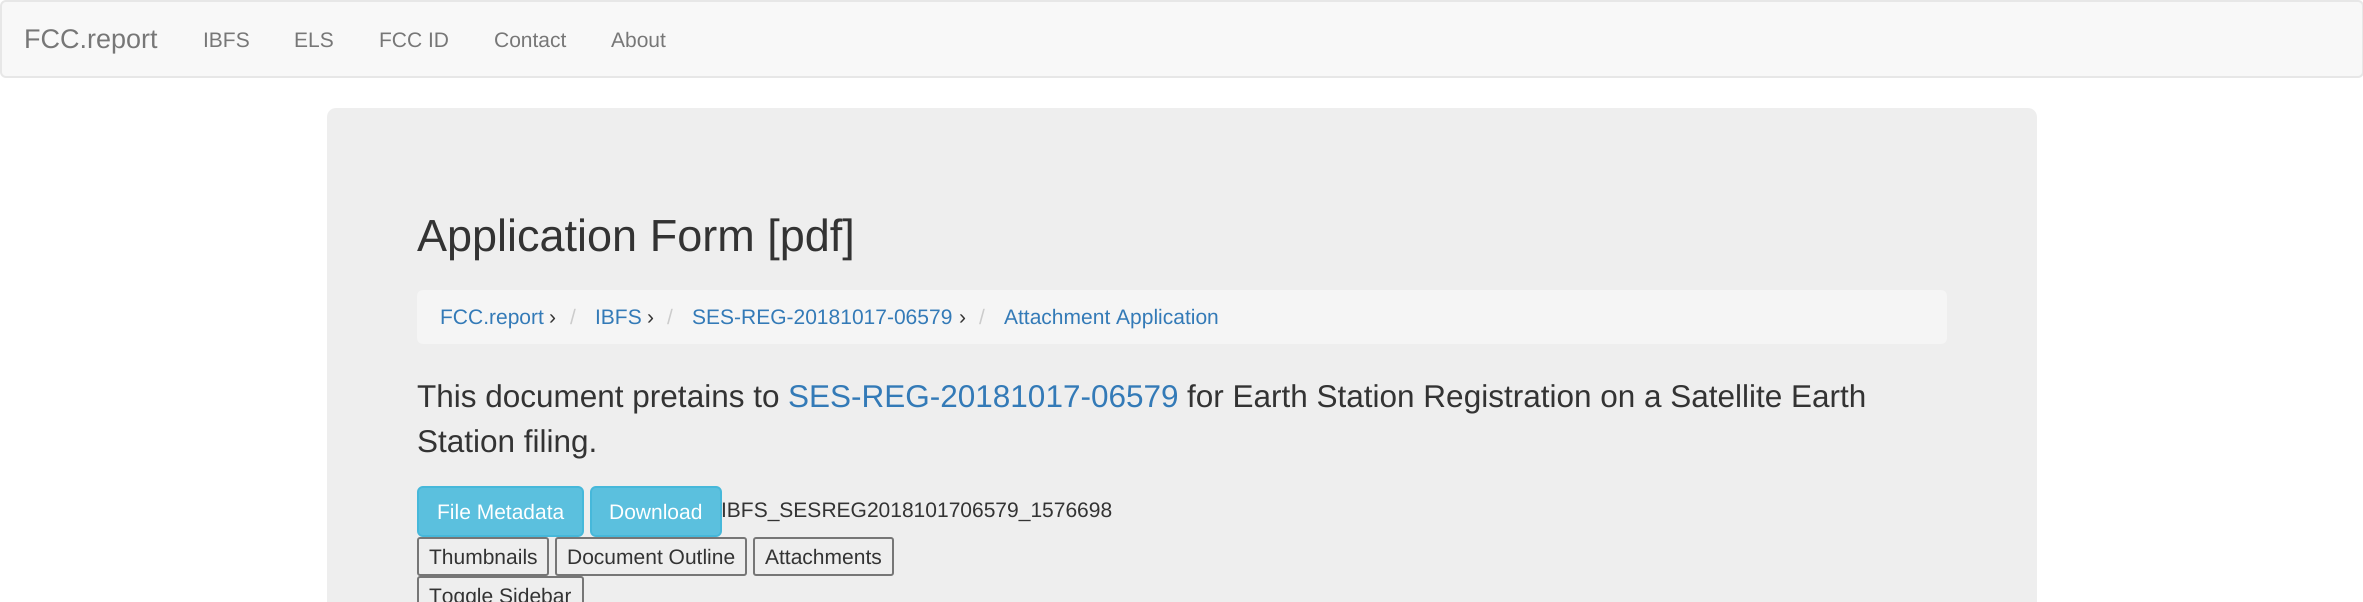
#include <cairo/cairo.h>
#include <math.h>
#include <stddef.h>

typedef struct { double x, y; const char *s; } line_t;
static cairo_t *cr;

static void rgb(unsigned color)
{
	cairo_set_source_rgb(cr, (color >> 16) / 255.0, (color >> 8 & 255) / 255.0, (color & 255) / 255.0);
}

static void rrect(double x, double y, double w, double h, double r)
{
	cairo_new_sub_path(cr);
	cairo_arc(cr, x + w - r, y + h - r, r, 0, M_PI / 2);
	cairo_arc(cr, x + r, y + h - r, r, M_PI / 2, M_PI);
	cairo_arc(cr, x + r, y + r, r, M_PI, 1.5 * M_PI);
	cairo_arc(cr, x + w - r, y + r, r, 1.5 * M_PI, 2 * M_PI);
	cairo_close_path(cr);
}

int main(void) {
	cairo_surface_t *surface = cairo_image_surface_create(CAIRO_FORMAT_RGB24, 2363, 602);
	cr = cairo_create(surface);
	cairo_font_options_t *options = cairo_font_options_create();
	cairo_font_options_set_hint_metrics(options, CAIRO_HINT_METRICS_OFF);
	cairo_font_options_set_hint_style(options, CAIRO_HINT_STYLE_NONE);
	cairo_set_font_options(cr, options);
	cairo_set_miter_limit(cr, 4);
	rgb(0xffffff);
	cairo_paint(cr);
	rgb(0xf8f8f8);
	rrect(1, 1, 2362, 76, 5);
	cairo_fill_preserve(cr);
	rgb(0xe7e7e7);
	cairo_stroke(cr);
	rgb(0xeeeeee);
	rrect(327, 108, 1710, 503, 9);
	cairo_fill(cr);
	rgb(0xf5f5f5);
	rrect(417, 290, 1530, 54, 6);
	cairo_fill(cr);
	rgb(0x5bc0de);
	rrect(418, 487, 165, 49, 5);
	cairo_fill_preserve(cr);
	rgb(0x46b8da);
	cairo_stroke(cr);
	rgb(0x5bc0de);
	rrect(591, 487, 130, 49, 5);
	cairo_fill_preserve(cr);
	rgb(0x46b8da);
	cairo_stroke(cr);
	rrect(418, 538, 130, 37, 2);
	rgb(0x767676);
	cairo_stroke(cr);
	rrect(556, 538, 190, 37, 2);
	cairo_stroke(cr);
	rrect(754, 538, 139, 37, 2);
	cairo_stroke(cr);
	rrect(418, 577, 165, 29, 2);
	cairo_stroke(cr);
	cairo_select_font_face(cr, "Liberation Sans", CAIRO_FONT_SLANT_NORMAL, CAIRO_FONT_WEIGHT_NORMAL);
	cairo_set_font_size(cr, 27);
	rgb(0x777777);
	cairo_move_to(cr, 24, 48);
	cairo_show_text(cr, "FCC.report");
	cairo_set_font_size(cr, 21);
	{
		static const line_t items[] = {
			{203, 47, "IBFS"},
			{294, 47, "ELS"},
			{379, 47, "FCC ID"},
			{494, 47, "Contact"},
			{611, 47, "About"},
		};
		for (size_t i = 0; i < sizeof items / sizeof *items; i++) {
			cairo_move_to(cr, items[i].x, items[i].y);
			cairo_show_text(cr, items[i].s);
		}
	}
	cairo_set_font_size(cr, 45);
	rgb(0x333333);
	cairo_move_to(cr, 417, 251);
	cairo_show_text(cr, "Application Form [pdf]");
	cairo_set_font_size(cr, 21);
	rgb(0x337ab7);
	cairo_move_to(cr, 440, 324);
	cairo_show_text(cr, "FCC.report");
	rgb(0x333333);
	cairo_move_to(cr, 549, 324);
	cairo_show_text(cr, "›");
	rgb(0xcccccc);
	cairo_move_to(cr, 570, 324);
	cairo_show_text(cr, "/");
	rgb(0x337ab7);
	cairo_move_to(cr, 595, 324);
	cairo_show_text(cr, "IBFS");
	rgb(0x333333);
	cairo_move_to(cr, 647, 324);
	cairo_show_text(cr, "›");
	rgb(0xcccccc);
	cairo_move_to(cr, 667, 324);
	cairo_show_text(cr, "/");
	rgb(0x337ab7);
	cairo_move_to(cr, 692, 324);
	cairo_show_text(cr, "SES-REG-20181017-06579");
	rgb(0x333333);
	cairo_move_to(cr, 959, 324);
	cairo_show_text(cr, "›");
	rgb(0xcccccc);
	cairo_move_to(cr, 979, 324);
	cairo_show_text(cr, "/");
	rgb(0x337ab7);
	cairo_move_to(cr, 1004, 324);
	cairo_show_text(cr, "Attachment Application");
	cairo_set_font_size(cr, 31.5);
	rgb(0x333333);
	cairo_move_to(cr, 417, 407);
	cairo_show_text(cr, "This document pretains to");
	rgb(0x337ab7);
	cairo_move_to(cr, 788, 407);
	cairo_show_text(cr, "SES-REG-20181017-06579");
	rgb(0x333333);
	cairo_move_to(cr, 1187, 407);
	cairo_show_text(cr, "for Earth Station Registration on a Satellite Earth");
	cairo_move_to(cr, 417, 452);
	cairo_show_text(cr, "Station filing.");
	cairo_set_font_size(cr, 21);
	rgb(0xffffff);
	cairo_move_to(cr, 437, 519);
	cairo_show_text(cr, "File Metadata");
	cairo_move_to(cr, 609, 519);
	cairo_show_text(cr, "Download");
	rgb(0x333333);
	{
		static const line_t items[] = {
			{721, 517, "IBFS_SESREG2018101706579_1576698"},
			{429, 564, "Thumbnails"},
			{567, 564, "Document Outline"},
			{765, 564, "Attachments"},
			{429, 603, "Toggle Sidebar"},
		};
		for (size_t i = 0; i < sizeof items / sizeof *items; i++) {
			cairo_move_to(cr, items[i].x, items[i].y);
			cairo_show_text(cr, items[i].s);
		}
	}
	cairo_surface_write_to_png(surface, "page.png");
	cairo_font_options_destroy(options);
	cairo_destroy(cr);
	cairo_surface_destroy(surface);
	return 0;
}
